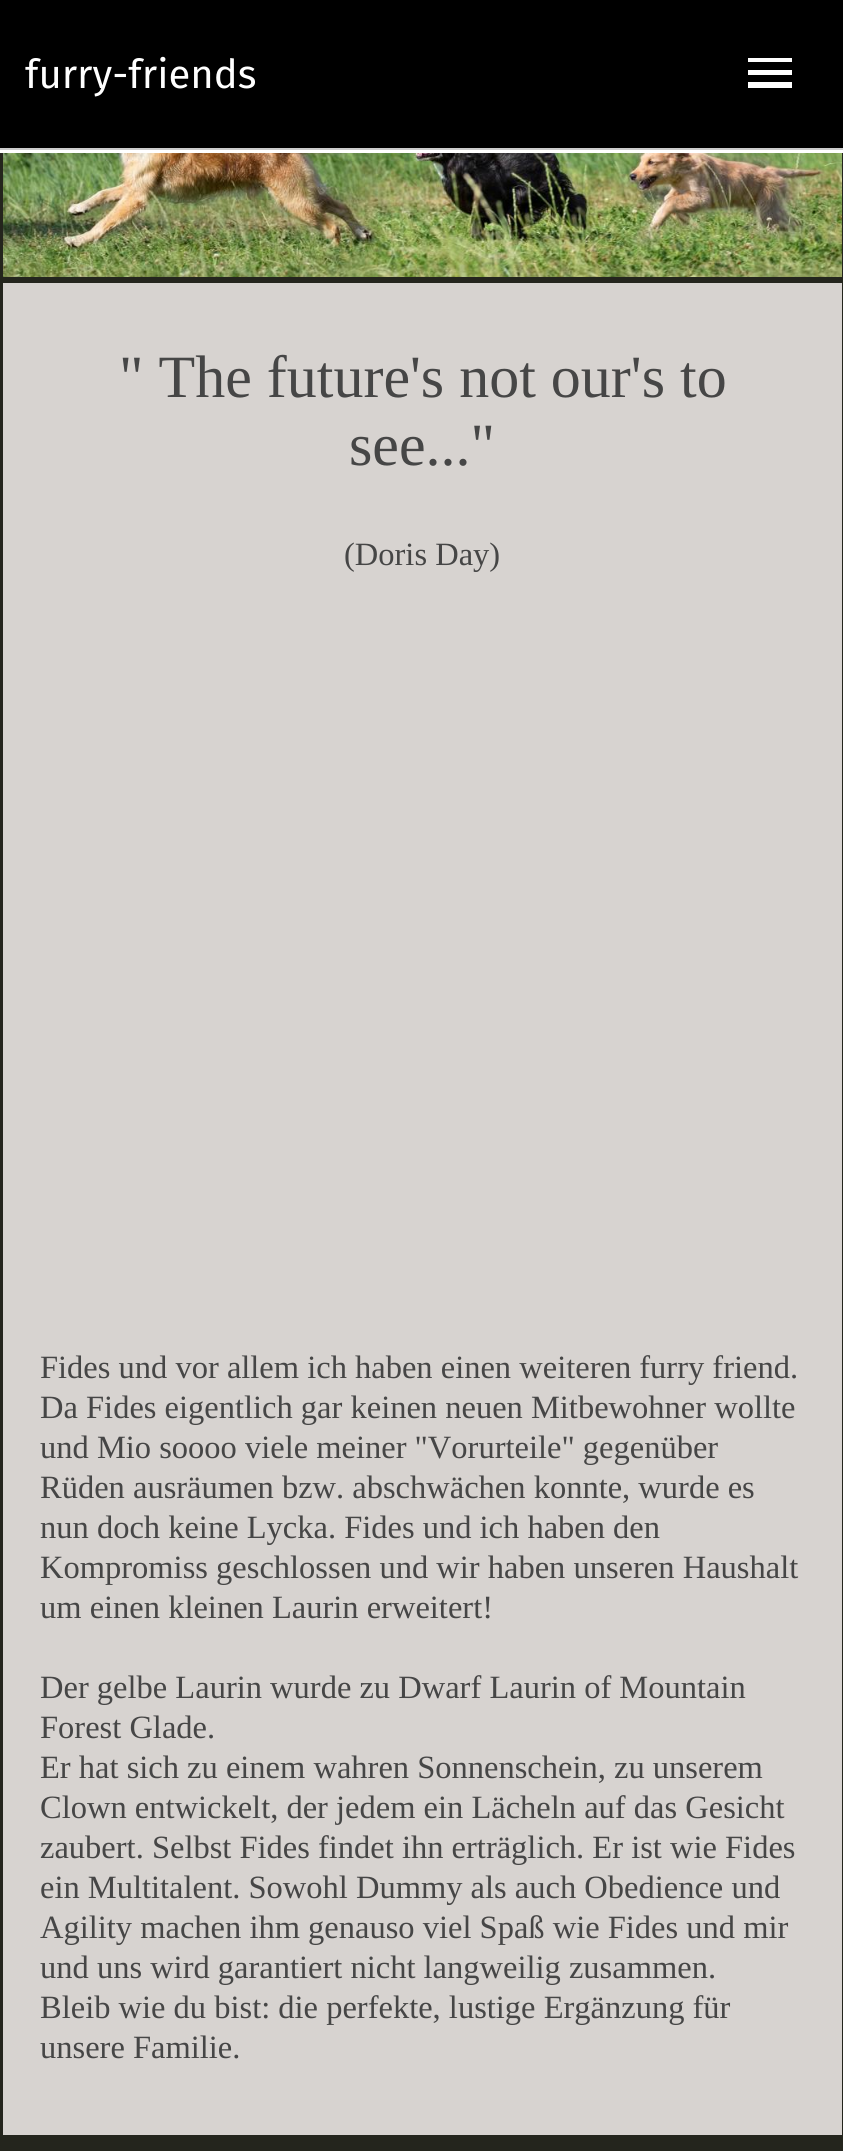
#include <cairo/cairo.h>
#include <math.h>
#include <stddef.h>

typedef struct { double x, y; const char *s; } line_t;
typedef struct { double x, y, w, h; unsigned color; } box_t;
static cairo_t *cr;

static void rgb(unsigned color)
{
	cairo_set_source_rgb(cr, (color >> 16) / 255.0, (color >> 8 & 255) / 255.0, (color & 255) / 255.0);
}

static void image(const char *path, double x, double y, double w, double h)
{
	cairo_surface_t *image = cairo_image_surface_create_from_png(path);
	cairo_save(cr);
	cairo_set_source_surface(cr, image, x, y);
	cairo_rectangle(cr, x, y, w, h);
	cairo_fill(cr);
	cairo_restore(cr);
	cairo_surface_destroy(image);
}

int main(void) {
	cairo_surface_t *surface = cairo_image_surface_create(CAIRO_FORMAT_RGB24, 843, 2151);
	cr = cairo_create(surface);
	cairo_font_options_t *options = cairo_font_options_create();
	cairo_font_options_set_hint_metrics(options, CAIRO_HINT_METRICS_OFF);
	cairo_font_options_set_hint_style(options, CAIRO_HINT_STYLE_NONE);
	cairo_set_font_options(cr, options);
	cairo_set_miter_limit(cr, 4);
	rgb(0x24251d);
	cairo_paint(cr);
	{
		static const box_t items[] = {
			{0, 0, 843, 148, 0x000000},
			{0, 148, 843, 2, 0xcccccc},
			{0, 150, 843, 3, 0xffffff},
		};
		for (size_t i = 0; i < sizeof items / sizeof *items; i++) {
			rgb(items[i].color);
			cairo_rectangle(cr, items[i].x, items[i].y, items[i].w, items[i].h);
			cairo_fill(cr);
		}
	}
	cairo_new_path(cr);
	cairo_move_to(cr, 748, 88);
	cairo_line_to(cr, 792, 88);
	cairo_line_to(cr, 792, 82);
	cairo_line_to(cr, 748, 82);
	cairo_close_path(cr);
	cairo_move_to(cr, 748, 75);
	cairo_line_to(cr, 792, 75);
	cairo_line_to(cr, 792, 70);
	cairo_line_to(cr, 748, 70);
	cairo_close_path(cr);
	cairo_move_to(cr, 748, 58);
	cairo_line_to(cr, 748, 62);
	cairo_line_to(cr, 792, 62);
	cairo_line_to(cr, 792, 58);
	cairo_close_path(cr);
	cairo_fill(cr);
	image("img/1.png", 3, 153, 839, 124);
	rgb(0xd7d3d0);
	cairo_rectangle(cr, 3, 283, 839, 1852);
	cairo_fill(cr);
	cairo_select_font_face(cr, "Fira Sans", CAIRO_FONT_SLANT_NORMAL, CAIRO_FONT_WEIGHT_NORMAL);
	cairo_set_font_size(cr, 40);
	rgb(0xffffff);
	cairo_move_to(cr, 25, 88);
	cairo_show_text(cr, "furry-friends");
	cairo_select_font_face(cr, "Liberation Serif", CAIRO_FONT_SLANT_NORMAL, CAIRO_FONT_WEIGHT_NORMAL);
	cairo_set_font_size(cr, 60);
	rgb(0x464646);
	cairo_move_to(cr, 119, 397);
	cairo_show_text(cr, "\" The future's not our's to");
	cairo_move_to(cr, 349, 465);
	cairo_show_text(cr, "see...\"");
	cairo_set_font_size(cr, 32.5);
	{
		static const line_t items[] = {
			{344, 565, "(Doris Day)"},
			{40, 1378, "Fides und vor allem ich haben einen weiteren furry friend."},
			{40, 1418, "Da Fides eigentlich gar keinen neuen Mitbewohner wollte"},
			{40, 1458, "und Mio soooo viele meiner \"Vorurteile\" gegenüber"},
			{40, 1498, "Rüden ausräumen bzw. abschwächen konnte, wurde es"},
			{40, 1538, "nun doch keine Lycka. Fides und ich haben den"},
			{40, 1578, "Kompromiss geschlossen und wir haben unseren Haushalt"},
			{40, 1618, "um einen kleinen Laurin erweitert!"},
			{40, 1698, "Der gelbe Laurin wurde zu Dwarf Laurin of Mountain"},
			{40, 1738, "Forest Glade."},
			{40, 1778, "Er hat sich zu einem wahren Sonnenschein, zu unserem"},
			{40, 1818, "Clown entwickelt, der jedem ein Lächeln auf das Gesicht"},
			{40, 1858, "zaubert. Selbst Fides findet ihn erträglich. Er ist wie Fides"},
			{40, 1898, "ein Multitalent. Sowohl Dummy als auch Obedience und"},
			{40, 1938, "Agility machen ihm genauso viel Spaß wie Fides und mir"},
			{40, 1978, "und uns wird garantiert nicht langweilig zusammen."},
			{40, 2018, "Bleib wie du bist: die perfekte, lustige Ergänzung für"},
			{40, 2058, "unsere Familie."},
		};
		for (size_t i = 0; i < sizeof items / sizeof *items; i++) {
			cairo_move_to(cr, items[i].x, items[i].y);
			cairo_show_text(cr, items[i].s);
		}
	}
	cairo_surface_write_to_png(surface, "page.png");
	cairo_font_options_destroy(options);
	cairo_destroy(cr);
	cairo_surface_destroy(surface);
	return 0;
}
